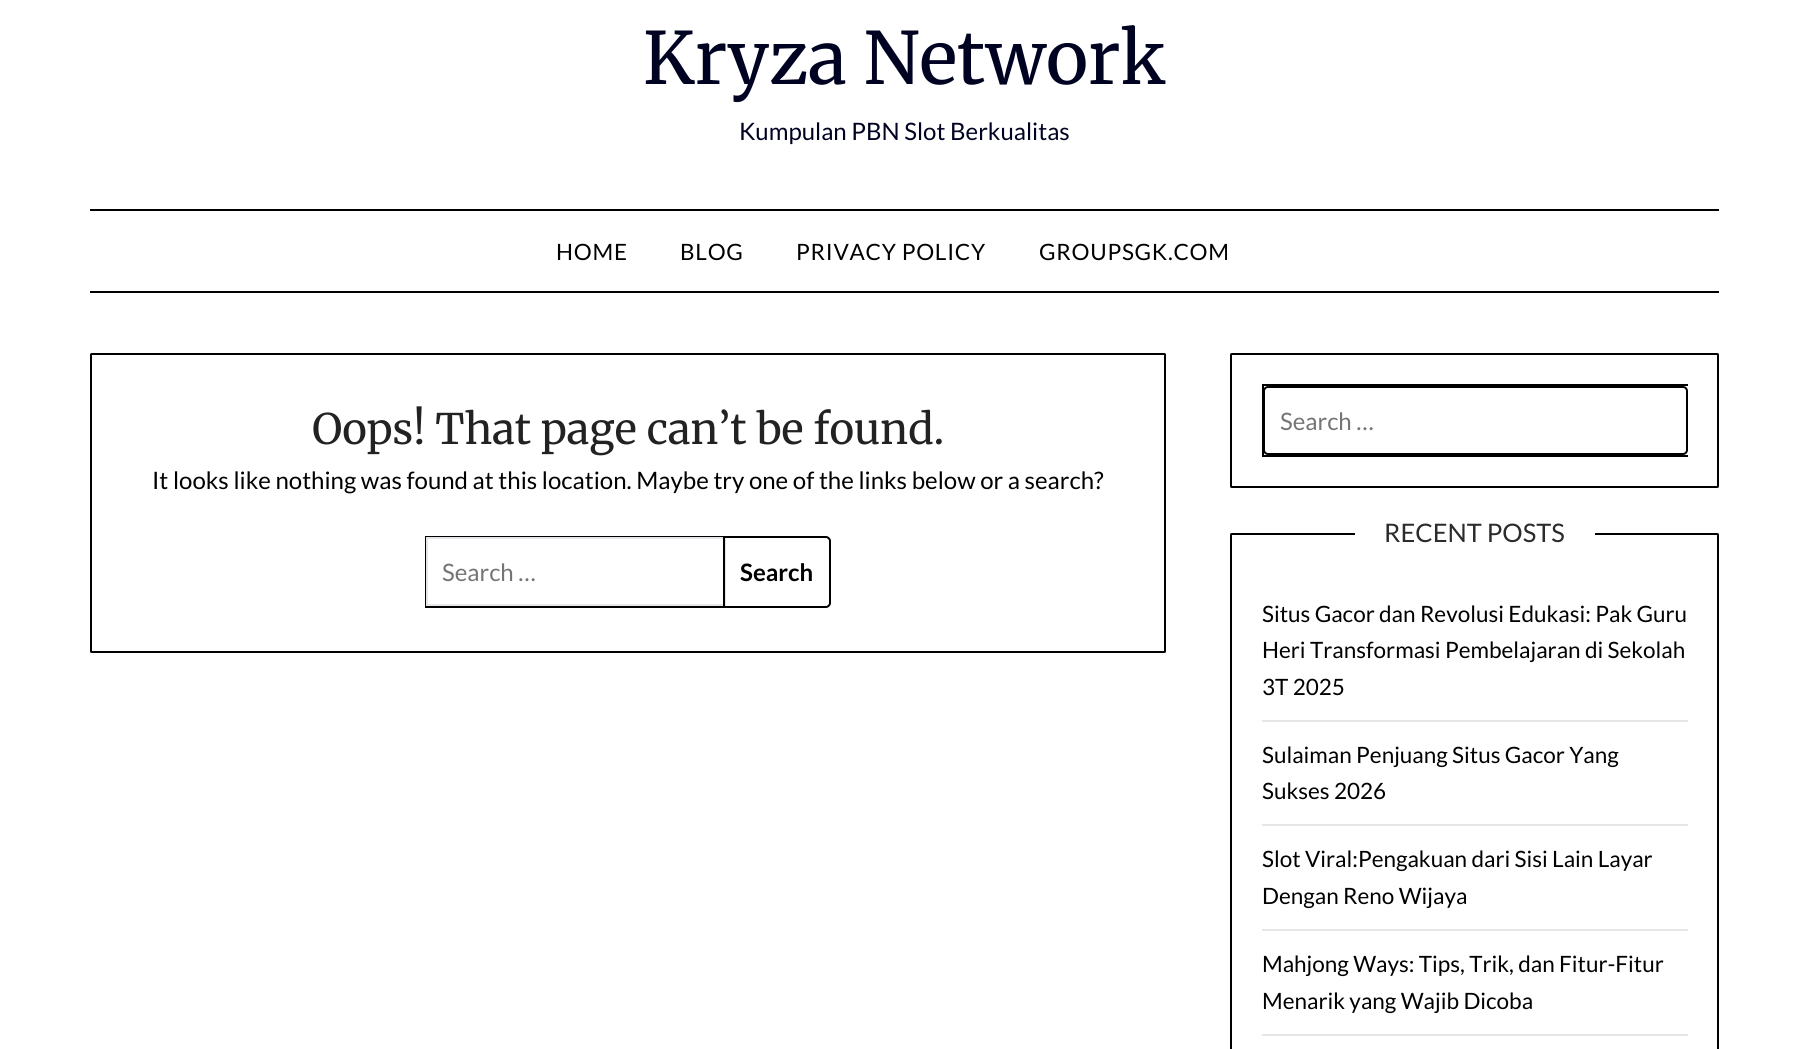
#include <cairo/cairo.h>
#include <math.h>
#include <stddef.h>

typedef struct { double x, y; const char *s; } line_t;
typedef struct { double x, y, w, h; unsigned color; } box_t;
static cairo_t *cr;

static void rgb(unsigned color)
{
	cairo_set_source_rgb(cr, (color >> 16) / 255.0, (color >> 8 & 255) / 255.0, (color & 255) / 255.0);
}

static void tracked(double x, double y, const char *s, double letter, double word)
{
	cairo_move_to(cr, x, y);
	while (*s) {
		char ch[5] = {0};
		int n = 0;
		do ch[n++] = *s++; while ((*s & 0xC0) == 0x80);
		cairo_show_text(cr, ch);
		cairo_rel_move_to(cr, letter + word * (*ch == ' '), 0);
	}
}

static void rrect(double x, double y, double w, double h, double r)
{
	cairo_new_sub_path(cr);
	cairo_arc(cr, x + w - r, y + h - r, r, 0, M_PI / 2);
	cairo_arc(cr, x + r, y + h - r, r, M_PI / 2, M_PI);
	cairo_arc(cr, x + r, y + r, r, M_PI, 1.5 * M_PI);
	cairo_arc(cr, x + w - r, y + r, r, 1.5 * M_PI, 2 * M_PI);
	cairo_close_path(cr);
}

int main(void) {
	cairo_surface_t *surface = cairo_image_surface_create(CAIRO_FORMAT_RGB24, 1809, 1049);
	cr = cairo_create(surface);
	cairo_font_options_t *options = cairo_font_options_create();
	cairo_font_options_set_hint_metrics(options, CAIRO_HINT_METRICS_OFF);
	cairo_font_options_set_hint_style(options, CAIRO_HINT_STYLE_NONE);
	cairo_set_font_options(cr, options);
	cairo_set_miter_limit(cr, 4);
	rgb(0xffffff);
	cairo_paint(cr);
	rgb(0x000000);
	cairo_rectangle(cr, 90, 209, 1629, 2);
	cairo_fill(cr);
	cairo_rectangle(cr, 90, 291, 1629, 2);
	cairo_fill(cr);
	rrect(91, 354, 1074, 298, 0.5);
	cairo_stroke(cr);
	{
		static const box_t items[] = {
			{425, 536, 301, 1, 0x000000},
			{425, 606, 301, 2, 0x000000},
			{425, 536, 2, 72, 0x000000},
		};
		for (size_t i = 0; i < sizeof items / sizeof *items; i++) {
			rgb(items[i].color);
			cairo_rectangle(cr, items[i].x, items[i].y, items[i].w, items[i].h);
			cairo_fill(cr);
		}
	}
	cairo_rectangle(cr, 427, 538, 298, 67);
	rgb(0xe5e6e9);
	cairo_stroke(cr);
	cairo_new_path(cr);
	cairo_move_to(cr, 724, 537);
	cairo_line_to(cr, 826, 537);
	cairo_curve_to(cr, 828, 537, 830, 539, 830, 541);
	cairo_line_to(cr, 830, 603);
	cairo_curve_to(cr, 830, 605, 828, 607, 826, 607);
	cairo_line_to(cr, 724, 607);
	cairo_close_path(cr);
	rgb(0x000000);
	cairo_stroke(cr);
	rrect(1231, 354, 487, 133, 0.5);
	cairo_stroke(cr);
	{
		static const box_t items[] = {
			{1262, 384, 426, 2, 0x000000},
			{1262, 455, 426, 2, 0x000000},
			{1262, 384, 2, 72, 0x000000},
		};
		for (size_t i = 0; i < sizeof items / sizeof *items; i++) {
			rgb(items[i].color);
			cairo_rectangle(cr, items[i].x, items[i].y, items[i].w, items[i].h);
			cairo_fill(cr);
		}
	}
	rrect(1264, 387, 423, 67, 4);
	cairo_stroke(cr);
	rrect(1231, 534, 487, 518, 0.5);
	cairo_stroke(cr);
	{
		static const box_t items[] = {
			{1355, 533, 240, 2, 0xffffff},
			{1262, 720, 426, 2, 0xe6e6e6},
			{1262, 824, 426, 2, 0xe6e6e6},
			{1262, 929, 426, 2, 0xe6e6e6},
			{1262, 1034, 426, 2, 0xe6e6e6},
		};
		for (size_t i = 0; i < sizeof items / sizeof *items; i++) {
			rgb(items[i].color);
			cairo_rectangle(cr, items[i].x, items[i].y, items[i].w, items[i].h);
			cairo_fill(cr);
		}
	}
	cairo_select_font_face(cr, "Merriweather", CAIRO_FONT_SLANT_NORMAL, CAIRO_FONT_WEIGHT_NORMAL);
	cairo_set_font_size(cr, 72);
	rgb(0x000222);
	cairo_move_to(cr, 643, 84);
	cairo_show_text(cr, "Kryza Network");
	cairo_select_font_face(cr, "Lato", CAIRO_FONT_SLANT_NORMAL, CAIRO_FONT_WEIGHT_NORMAL);
	cairo_set_font_size(cr, 24);
	cairo_move_to(cr, 739, 140);
	cairo_show_text(cr, "Kumpulan PBN Slot Berkualitas");
	cairo_set_font_size(cr, 22.5);
	rgb(0x000000);
	{
		static const line_t items[] = {
			{556, 260, "HOME"},
			{680, 260, "BLOG"},
			{796, 260, "PRIVACY POLICY"},
			{1039, 260, "GROUPSGK.COM"},
		};
		for (size_t i = 0; i < sizeof items / sizeof *items; i++) {
			tracked(items[i].x, items[i].y, items[i].s, 0.75, 0);
		}
	}
	cairo_select_font_face(cr, "Merriweather", CAIRO_FONT_SLANT_NORMAL, CAIRO_FONT_WEIGHT_NORMAL);
	cairo_set_font_size(cr, 42);
	rgb(0x222222);
	cairo_move_to(cr, 312, 444);
	cairo_show_text(cr, "Oops! That page can’t be found.");
	cairo_select_font_face(cr, "Lato", CAIRO_FONT_SLANT_NORMAL, CAIRO_FONT_WEIGHT_NORMAL);
	cairo_set_font_size(cr, 24);
	rgb(0x000000);
	cairo_move_to(cr, 152, 489);
	cairo_show_text(cr, "It looks like nothing was found at this location. Maybe try one of the links below or a search?");
	rgb(0x757575);
	cairo_move_to(cr, 442, 581);
	cairo_show_text(cr, "Search …");
	cairo_select_font_face(cr, "Lato", CAIRO_FONT_SLANT_NORMAL, CAIRO_FONT_WEIGHT_BOLD);
	rgb(0x000000);
	cairo_move_to(cr, 740, 581);
	cairo_show_text(cr, "Search");
	cairo_select_font_face(cr, "Lato", CAIRO_FONT_SLANT_NORMAL, CAIRO_FONT_WEIGHT_NORMAL);
	rgb(0x757575);
	cairo_move_to(cr, 1280, 430);
	cairo_show_text(cr, "Search …");
	cairo_set_font_size(cr, 25.5);
	rgb(0x2b2b2b);
	cairo_move_to(cr, 1384, 542);
	cairo_show_text(cr, "RECENT POSTS");
	cairo_set_font_size(cr, 22.5);
	rgb(0x000000);
	{
		static const line_t items[] = {
			{1262, 622, "Situs Gacor dan Revolusi Edukasi: Pak Guru"},
			{1262, 658, "Heri Transformasi Pembelajaran di Sekolah"},
			{1262, 695, "3T 2025"},
			{1262, 763, "Sulaiman Penjuang Situs Gacor Yang"},
			{1262, 799, "Sukses 2026"},
			{1262, 867, "Slot Viral:Pengakuan dari Sisi Lain Layar"},
			{1262, 904, "Dengan Reno Wijaya"},
			{1262, 972, "Mahjong Ways: Tips, Trik, dan Fitur-Fitur"},
			{1262, 1009, "Menarik yang Wajib Dicoba"},
		};
		for (size_t i = 0; i < sizeof items / sizeof *items; i++) {
			cairo_move_to(cr, items[i].x, items[i].y);
			cairo_show_text(cr, items[i].s);
		}
	}
	cairo_surface_write_to_png(surface, "page.png");
	cairo_font_options_destroy(options);
	cairo_destroy(cr);
	cairo_surface_destroy(surface);
	return 0;
}
